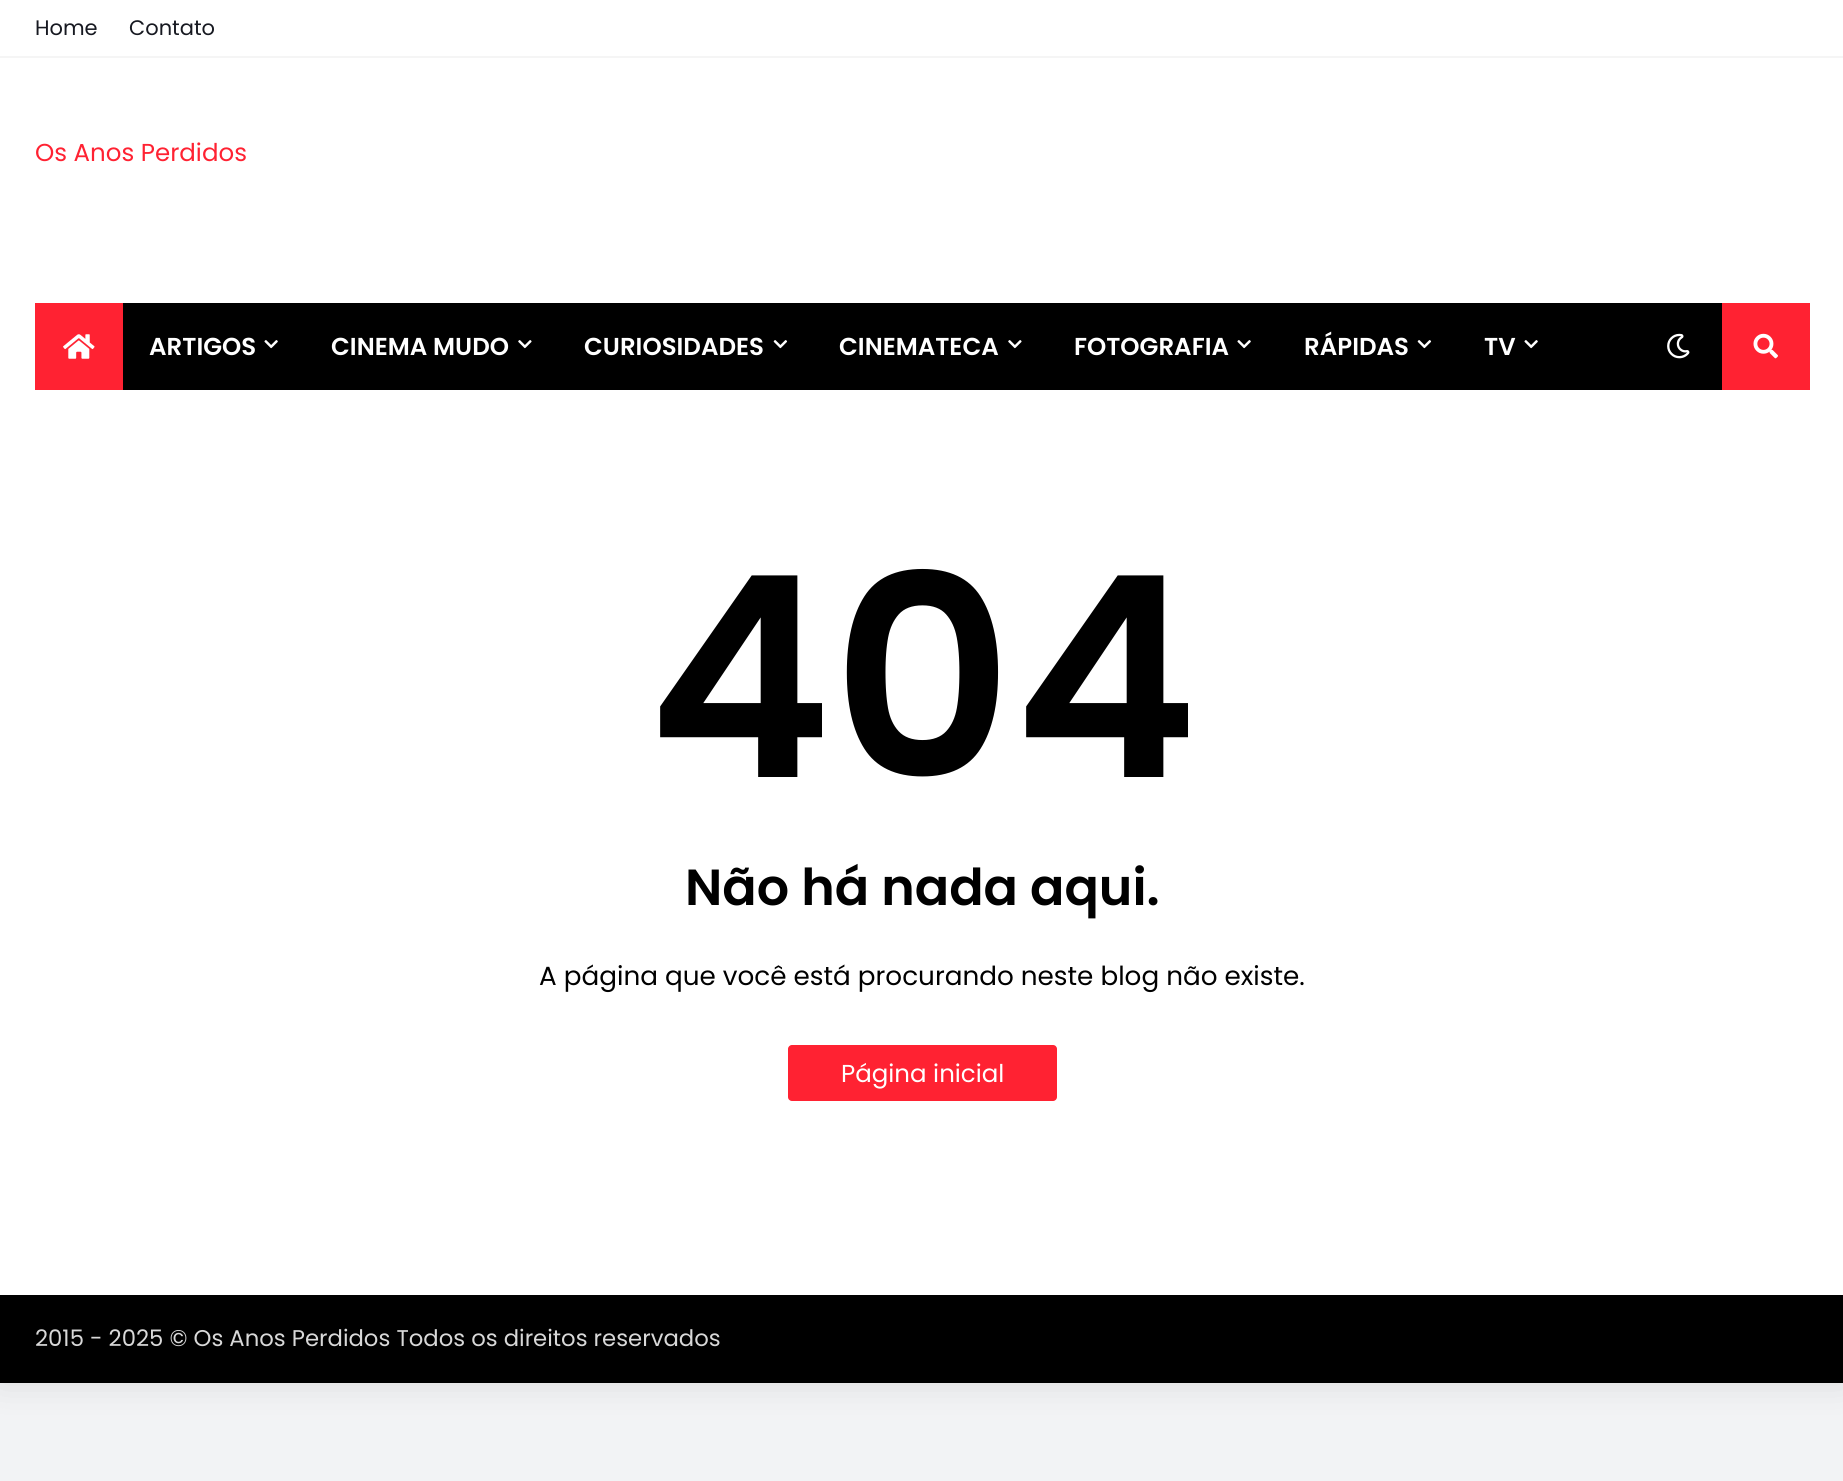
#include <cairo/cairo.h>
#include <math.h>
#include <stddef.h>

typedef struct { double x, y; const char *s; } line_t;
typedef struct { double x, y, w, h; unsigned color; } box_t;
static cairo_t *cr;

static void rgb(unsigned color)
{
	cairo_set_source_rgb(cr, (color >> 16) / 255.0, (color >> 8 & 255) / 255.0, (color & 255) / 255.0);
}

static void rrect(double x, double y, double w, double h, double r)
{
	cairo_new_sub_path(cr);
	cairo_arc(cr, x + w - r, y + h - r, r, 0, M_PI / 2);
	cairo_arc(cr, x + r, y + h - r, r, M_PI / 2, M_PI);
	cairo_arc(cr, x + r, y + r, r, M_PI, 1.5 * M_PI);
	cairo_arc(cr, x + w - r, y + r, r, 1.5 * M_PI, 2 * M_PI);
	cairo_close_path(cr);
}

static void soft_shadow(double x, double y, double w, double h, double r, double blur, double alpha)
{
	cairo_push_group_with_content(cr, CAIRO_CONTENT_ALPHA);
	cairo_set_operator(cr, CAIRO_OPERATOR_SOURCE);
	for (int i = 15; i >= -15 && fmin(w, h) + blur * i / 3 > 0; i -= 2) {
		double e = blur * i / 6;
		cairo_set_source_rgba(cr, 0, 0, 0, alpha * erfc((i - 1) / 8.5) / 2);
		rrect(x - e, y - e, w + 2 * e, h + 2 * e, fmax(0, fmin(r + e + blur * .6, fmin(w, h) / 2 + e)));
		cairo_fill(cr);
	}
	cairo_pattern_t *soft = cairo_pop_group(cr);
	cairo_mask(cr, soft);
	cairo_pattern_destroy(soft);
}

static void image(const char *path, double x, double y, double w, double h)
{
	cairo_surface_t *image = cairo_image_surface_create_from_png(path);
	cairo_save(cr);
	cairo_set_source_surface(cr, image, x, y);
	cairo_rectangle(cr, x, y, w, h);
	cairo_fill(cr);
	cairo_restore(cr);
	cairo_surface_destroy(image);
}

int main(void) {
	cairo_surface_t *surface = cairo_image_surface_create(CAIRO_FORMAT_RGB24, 1843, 1481);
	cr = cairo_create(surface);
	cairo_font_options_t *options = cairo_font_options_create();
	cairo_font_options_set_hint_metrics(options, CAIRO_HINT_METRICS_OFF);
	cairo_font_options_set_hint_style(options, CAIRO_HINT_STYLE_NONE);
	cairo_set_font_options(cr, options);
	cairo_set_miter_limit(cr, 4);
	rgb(0xf2f3f5);
	cairo_paint(cr);
	rgb(0x000000);
	soft_shadow(0, 0, 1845, 1383, 0, 17.5, 0.1);
	{
		static const box_t items[] = {
			{0, 0, 1843, 1295, 0xffffff},
			{0, 56, 1843, 2, 0xf5f5f5},
			{123, 303, 1599, 87, 0x000000},
			{35, 303, 88, 87, 0xff2232},
		};
		for (size_t i = 0; i < sizeof items / sizeof *items; i++) {
			rgb(items[i].color);
			cairo_rectangle(cr, items[i].x, items[i].y, items[i].w, items[i].h);
			cairo_fill(cr);
		}
	}
	image("img/1.png", 63, 334, 32, 25);
	image("img/2.png", 264, 340, 14, 9);
	image("img/3.png", 518, 340, 14, 9);
	image("img/4.png", 773, 340, 15, 9);
	image("img/3.png", 1008, 340, 14, 9);
	image("img/2.png", 1237, 340, 14, 9);
	image("img/4.png", 1417, 340, 15, 9);
	image("img/2.png", 1524, 340, 14, 9);
	image("img/5.png", 1667, 333, 23, 26);
	cairo_rectangle(cr, 1722, 303, 88, 87);
	cairo_fill(cr);
	image("img/6.png", 1753, 333, 25, 26);
	rrect(788, 1045, 269, 56, 4);
	cairo_fill(cr);
	rgb(0x000000);
	cairo_rectangle(cr, 0, 1295, 1843, 88);
	cairo_fill(cr);
	cairo_select_font_face(cr, "Poppins", CAIRO_FONT_SLANT_NORMAL, CAIRO_FONT_WEIGHT_NORMAL);
	cairo_set_font_size(cr, 21);
	rgb(0x171921);
	cairo_move_to(cr, 35, 35);
	cairo_show_text(cr, "Home");
	cairo_move_to(cr, 129, 35);
	cairo_show_text(cr, "Contato");
	cairo_set_font_size(cr, 24.5);
	rgb(0xff2232);
	cairo_move_to(cr, 35, 161);
	cairo_show_text(cr, "Os Anos Perdidos");
	cairo_select_font_face(cr, "Poppins SemiBold", CAIRO_FONT_SLANT_NORMAL, CAIRO_FONT_WEIGHT_NORMAL);
	rgb(0xffffff);
	{
		static const line_t items[] = {
			{149, 355, "ARTIGOS"},
			{331, 355, "CINEMA MUDO"},
			{584, 355, "CURIOSIDADES"},
			{839, 355, "CINEMATECA"},
			{1074, 355, "FOTOGRAFIA"},
			{1304, 355, "RÁPIDAS"},
			{1484, 355, "TV"},
		};
		for (size_t i = 0; i < sizeof items / sizeof *items; i++) {
			cairo_move_to(cr, items[i].x, items[i].y);
			cairo_show_text(cr, items[i].s);
		}
	}
	cairo_set_font_size(cr, 280);
	rgb(0x000000);
	cairo_move_to(cr, 647, 777);
	cairo_show_text(cr, "404");
	cairo_set_font_size(cr, 50.75);
	cairo_move_to(cr, 685, 905);
	cairo_show_text(cr, "Não há nada aqui.");
	cairo_select_font_face(cr, "Poppins", CAIRO_FONT_SLANT_NORMAL, CAIRO_FONT_WEIGHT_NORMAL);
	cairo_set_font_size(cr, 26.25);
	cairo_move_to(cr, 539, 985);
	cairo_show_text(cr, "A página que você está procurando neste blog não existe.");
	cairo_set_font_size(cr, 24.5);
	rgb(0xffffff);
	cairo_move_to(cr, 841, 1082);
	cairo_show_text(cr, "Página inicial");
	cairo_set_font_size(cr, 22.75);
	rgb(0xd8d8d8);
	cairo_move_to(cr, 35, 1346);
	cairo_show_text(cr, "2015 - 2025 © Os Anos Perdidos Todos os direitos reservados");
	cairo_surface_write_to_png(surface, "page.png");
	cairo_font_options_destroy(options);
	cairo_destroy(cr);
	cairo_surface_destroy(surface);
	return 0;
}
